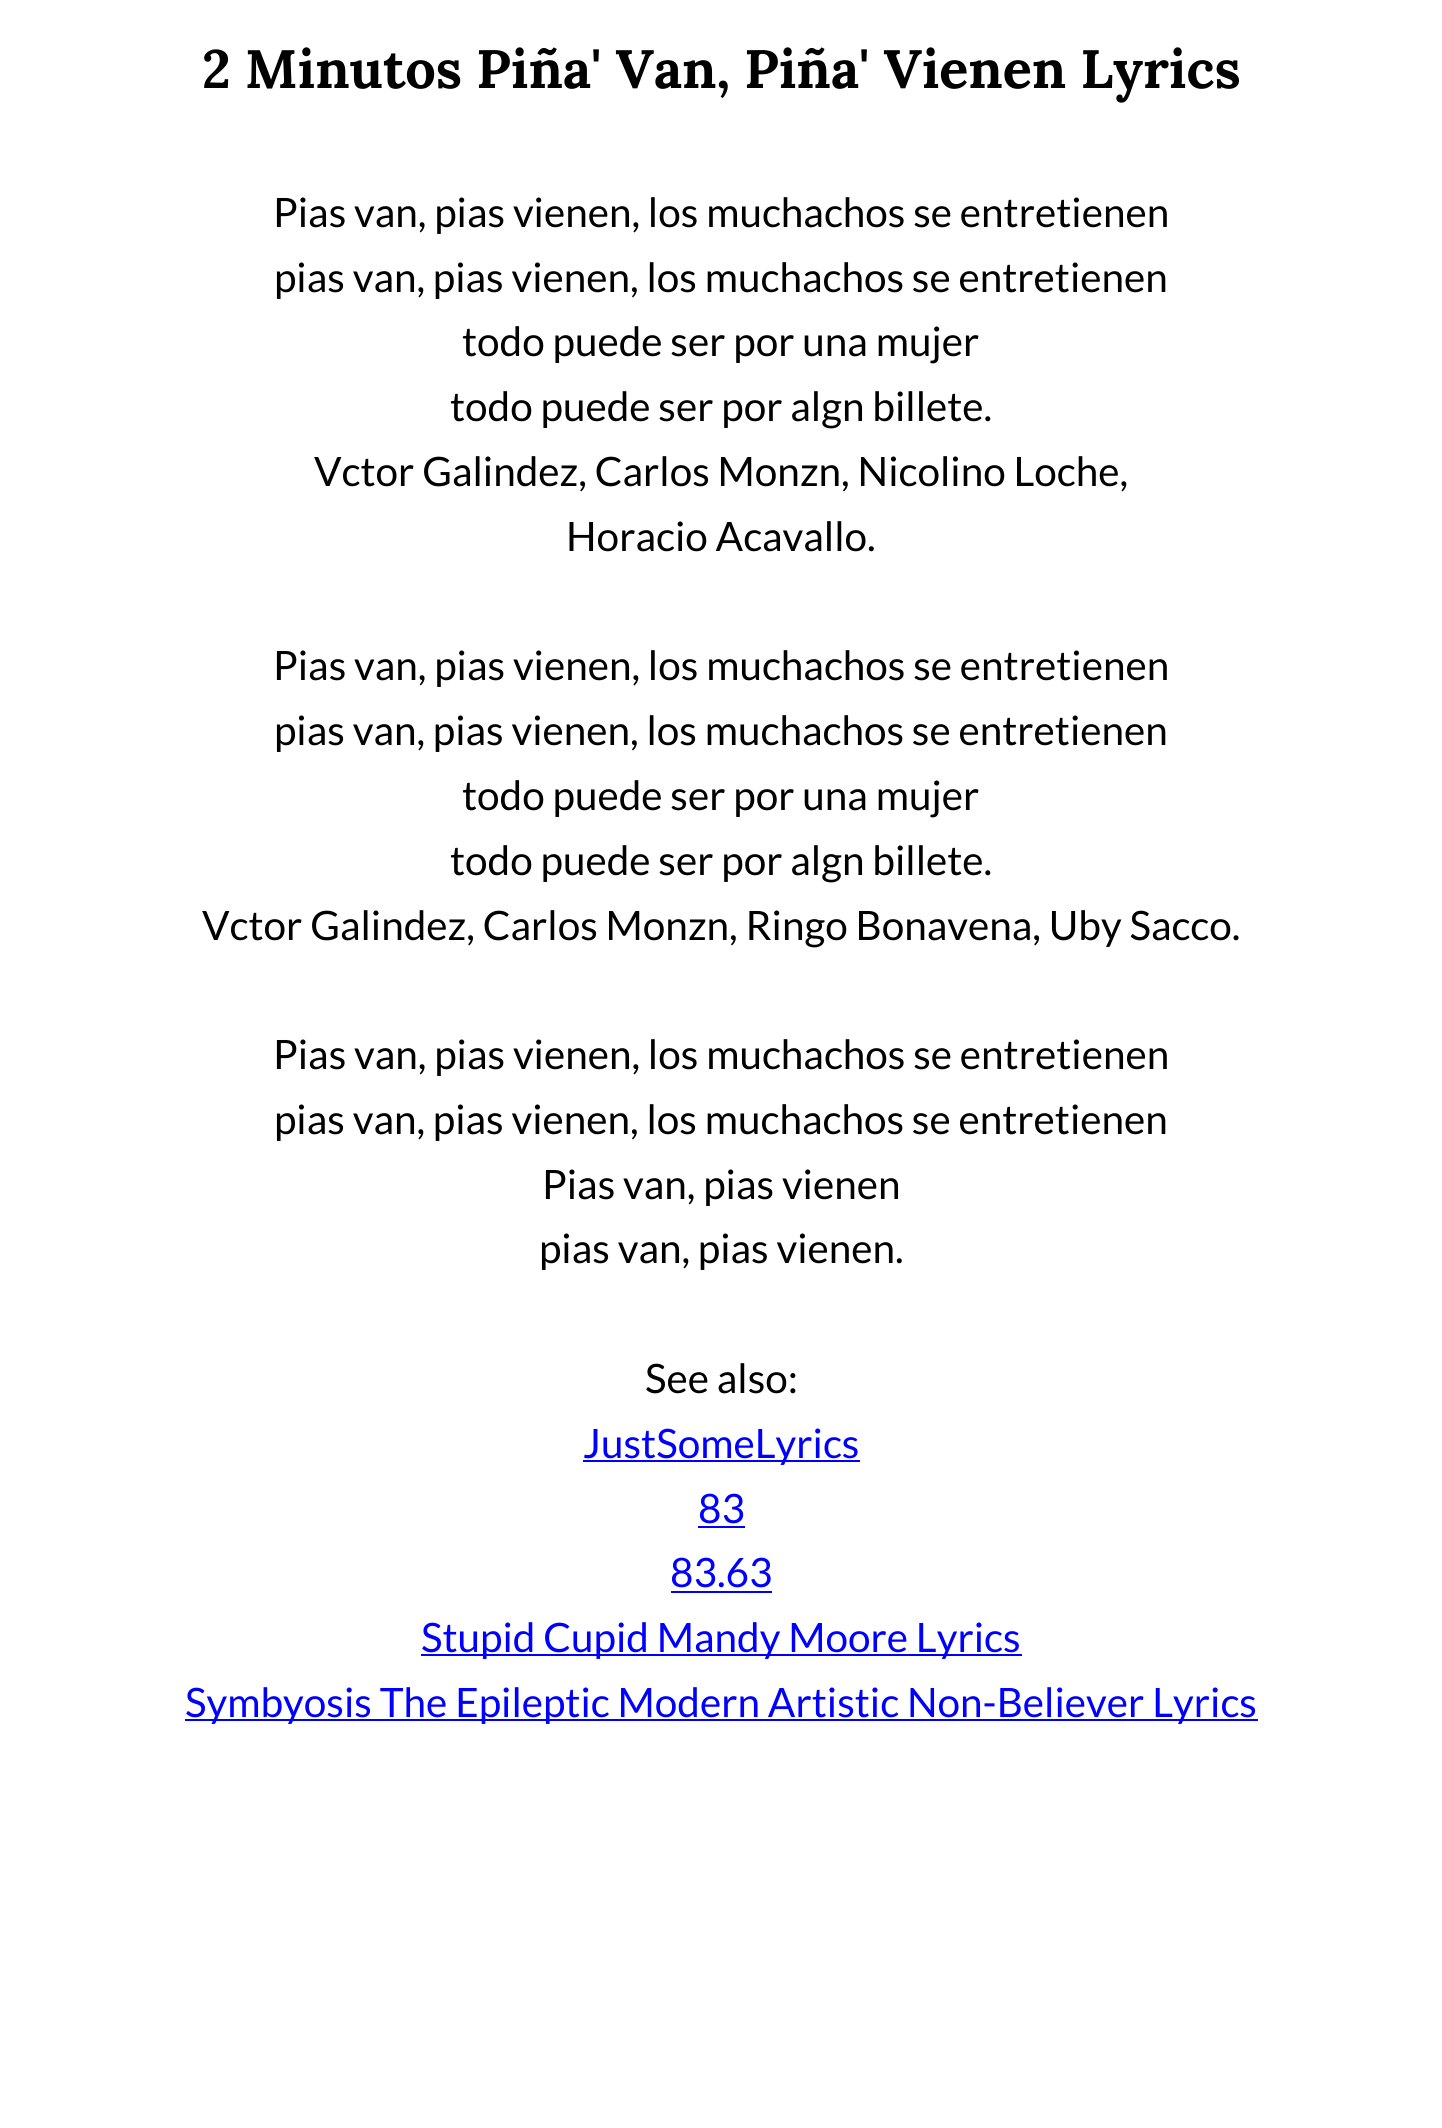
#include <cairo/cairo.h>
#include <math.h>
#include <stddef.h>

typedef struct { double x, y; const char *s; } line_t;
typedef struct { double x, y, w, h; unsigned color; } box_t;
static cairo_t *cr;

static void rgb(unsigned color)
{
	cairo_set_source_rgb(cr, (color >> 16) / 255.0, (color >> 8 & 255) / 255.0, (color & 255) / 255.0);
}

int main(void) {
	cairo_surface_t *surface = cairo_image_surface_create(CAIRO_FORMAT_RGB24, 1442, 2128);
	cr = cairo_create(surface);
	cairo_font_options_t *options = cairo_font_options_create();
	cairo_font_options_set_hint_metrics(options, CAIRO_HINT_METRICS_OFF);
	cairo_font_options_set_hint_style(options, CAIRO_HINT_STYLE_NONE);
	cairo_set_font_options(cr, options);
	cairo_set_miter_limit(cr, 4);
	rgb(0xffffff);
	cairo_paint(cr);
	{
		static const box_t items[] = {
			{583, 1460, 277, 2, 0x0000ff},
			{698, 1526, 47, 2, 0x0000ff},
			{671, 1591, 101, 2, 0x0000ff},
			{421, 1654, 601, 2, 0x0000ff},
			{185, 1719, 1073, 2, 0x0000ff},
		};
		for (size_t i = 0; i < sizeof items / sizeof *items; i++) {
			rgb(items[i].color);
			cairo_rectangle(cr, items[i].x, items[i].y, items[i].w, items[i].h);
			cairo_fill(cr);
		}
	}
	cairo_select_font_face(cr, "Lora", CAIRO_FONT_SLANT_NORMAL, CAIRO_FONT_WEIGHT_BOLD);
	cairo_set_font_size(cr, 54);
	rgb(0x000000);
	cairo_move_to(cr, 202, 88);
	cairo_show_text(cr, "2 Minutos Piña' Van, Piña' Vienen Lyrics");
	cairo_select_font_face(cr, "Lato", CAIRO_FONT_SLANT_NORMAL, CAIRO_FONT_WEIGHT_NORMAL);
	cairo_set_font_size(cr, 40.5);
	{
		static const line_t items[] = {
			{273, 227, "Pias van, pias vienen, los muchachos se entretienen"},
			{274, 292, "pias van, pias vienen, los muchachos se entretienen"},
			{462, 356, "todo puede ser por una mujer"},
			{450, 421, "todo puede ser por algn billete."},
			{314, 486, "Vctor Galindez, Carlos Monzn, Nicolino Loche,"},
			{566, 551, "Horacio Acavallo."},
			{273, 680, "Pias van, pias vienen, los muchachos se entretienen"},
			{274, 745, "pias van, pias vienen, los muchachos se entretienen"},
			{462, 810, "todo puede ser por una mujer"},
			{450, 875, "todo puede ser por algn billete."},
			{202, 940, "Vctor Galindez, Carlos Monzn, Ringo Bonavena, Uby Sacco."},
			{273, 1069, "Pias van, pias vienen, los muchachos se entretienen"},
			{274, 1134, "pias van, pias vienen, los muchachos se entretienen"},
			{542, 1199, "Pias van, pias vienen"},
			{539, 1263, "pias van, pias vienen."},
			{645, 1393, "See also:"},
		};
		for (size_t i = 0; i < sizeof items / sizeof *items; i++) {
			cairo_move_to(cr, items[i].x, items[i].y);
			cairo_show_text(cr, items[i].s);
		}
	}
	rgb(0x0000ff);
	{
		static const line_t items[] = {
			{583, 1458, "JustSomeLyrics"},
			{698, 1523, "83"},
			{670, 1587, "83.63"},
			{421, 1652, "Stupid Cupid Mandy Moore Lyrics"},
			{185, 1717, "Symbyosis The Epileptic Modern Artistic Non-Believer Lyrics"},
		};
		for (size_t i = 0; i < sizeof items / sizeof *items; i++) {
			cairo_move_to(cr, items[i].x, items[i].y);
			cairo_show_text(cr, items[i].s);
		}
	}
	cairo_surface_write_to_png(surface, "page.png");
	cairo_font_options_destroy(options);
	cairo_destroy(cr);
	cairo_surface_destroy(surface);
	return 0;
}
